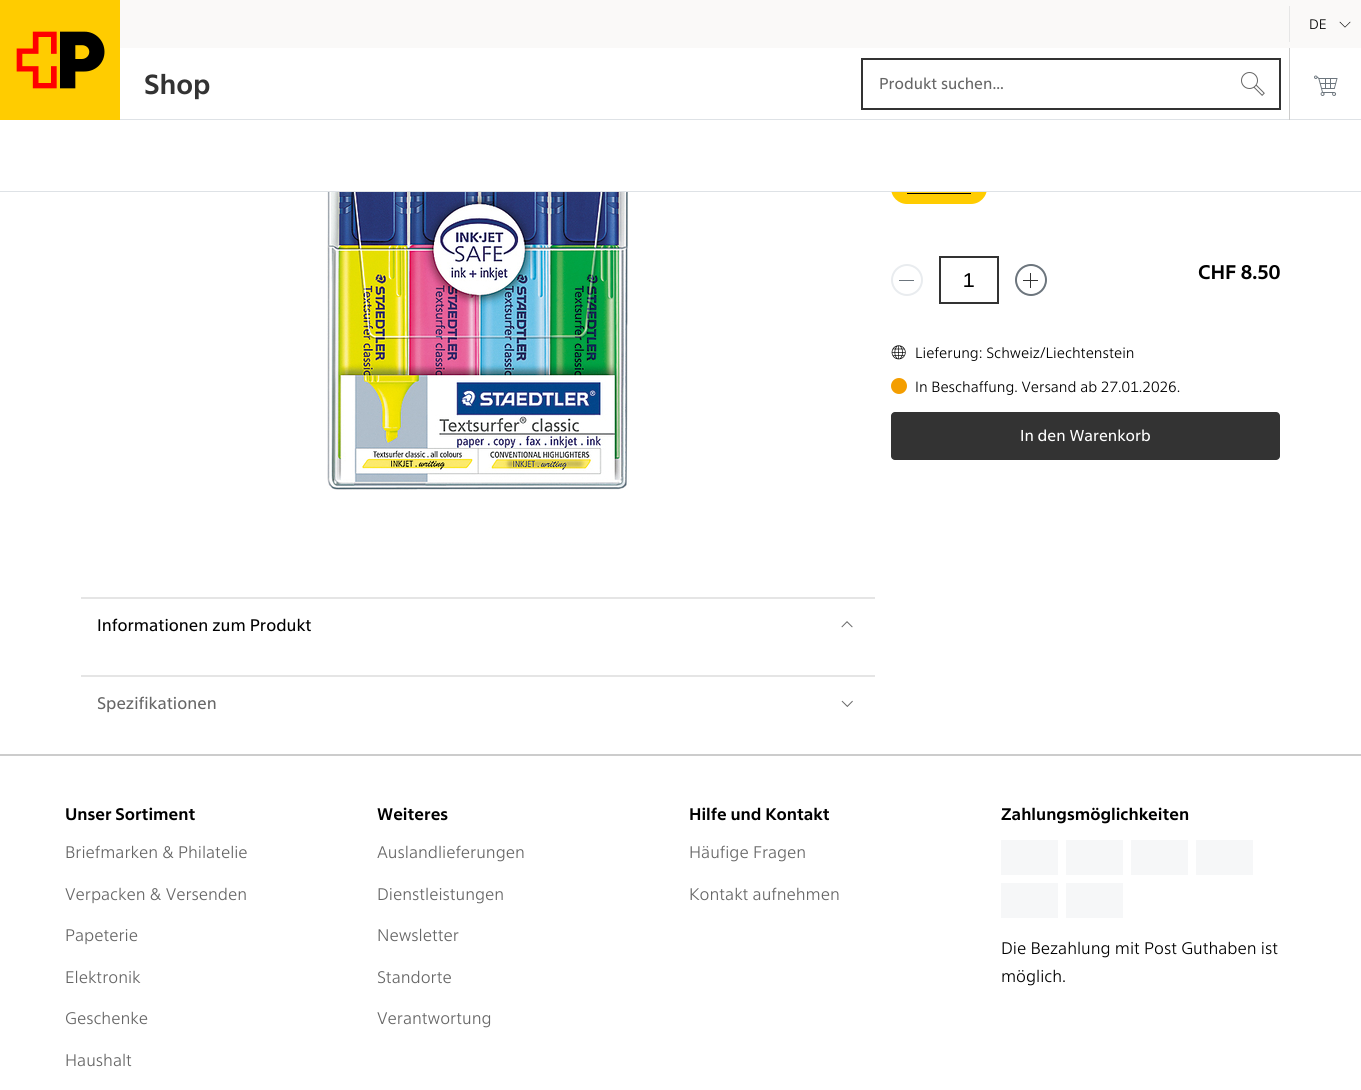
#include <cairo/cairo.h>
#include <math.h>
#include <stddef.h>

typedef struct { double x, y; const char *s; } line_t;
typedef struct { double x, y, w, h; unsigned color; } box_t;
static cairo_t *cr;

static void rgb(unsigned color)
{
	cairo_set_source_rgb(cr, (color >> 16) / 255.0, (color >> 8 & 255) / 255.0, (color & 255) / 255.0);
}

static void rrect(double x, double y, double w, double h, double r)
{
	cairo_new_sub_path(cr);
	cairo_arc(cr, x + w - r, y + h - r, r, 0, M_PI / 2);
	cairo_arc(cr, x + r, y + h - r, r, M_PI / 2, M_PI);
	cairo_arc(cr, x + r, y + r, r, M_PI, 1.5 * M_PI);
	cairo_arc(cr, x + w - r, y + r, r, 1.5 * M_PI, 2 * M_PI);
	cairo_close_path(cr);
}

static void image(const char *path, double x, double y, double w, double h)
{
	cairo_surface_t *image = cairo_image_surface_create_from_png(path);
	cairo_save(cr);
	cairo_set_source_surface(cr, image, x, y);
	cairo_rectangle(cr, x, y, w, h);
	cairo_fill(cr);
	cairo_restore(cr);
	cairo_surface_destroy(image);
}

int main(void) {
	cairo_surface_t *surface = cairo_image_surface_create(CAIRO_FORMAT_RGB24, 1361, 1090);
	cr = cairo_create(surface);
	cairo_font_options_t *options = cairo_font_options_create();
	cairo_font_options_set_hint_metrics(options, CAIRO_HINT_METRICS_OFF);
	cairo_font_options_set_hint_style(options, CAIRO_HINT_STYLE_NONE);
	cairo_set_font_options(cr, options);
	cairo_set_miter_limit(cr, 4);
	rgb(0xffffff);
	cairo_paint(cr);
	rgb(0xffcc00);
	rrect(891, 172, 96, 32, 16);
	cairo_fill(cr);
	{
		static const box_t items[] = {
			{891, 172, 96, 19, 0xffffff},
			{0, 191, 1361, 1, 0xdee2e6},
			{120, 0, 1241, 48, 0xfaf9f8},
			{1289, 6, 1, 36, 0xe6e6e6},
		};
		for (size_t i = 0; i < sizeof items / sizeof *items; i++) {
			rgb(items[i].color);
			cairo_rectangle(cr, items[i].x, items[i].y, items[i].w, items[i].h);
			cairo_fill(cr);
		}
	}
	image("img/1.png", 1339, 21, 12, 7);
	image("img/2.png", 0, 0, 120, 120);
	cairo_rectangle(cr, 862, 59, 418, 50);
	rgb(0x333333);
	cairo_stroke(cr);
	image("img/3.png", 1241, 72, 24, 24);
	rgb(0xdee2e6);
	cairo_rectangle(cr, 120, 119, 1241, 1);
	cairo_fill(cr);
	rgb(0xcccccc);
	cairo_rectangle(cr, 1289, 48, 1, 72);
	cairo_fill(cr);
	image("img/4.png", 1314, 75, 24, 21);
	rgb(0x000000);
	cairo_rectangle(cr, 907, 193, 64, 1);
	cairo_fill(cr);
	cairo_arc(cr, 907, 280, 15, 0, 2 * M_PI);
	rgb(0xe9ecef);
	cairo_stroke(cr);
	rgb(0x6c757d);
	cairo_rectangle(cr, 899, 280, 15, 1);
	cairo_fill(cr);
	cairo_rectangle(cr, 940, 257, 58, 46);
	rgb(0x333333);
	cairo_stroke(cr);
	cairo_arc(cr, 1031, 280, 15, 0, 2 * M_PI);
	rgb(0x6c757d);
	cairo_stroke(cr);
	image("img/5.png", 1023, 273, 15, 15);
	image("img/6.png", 891, 345, 15, 15);
	rgb(0xf49e00);
	cairo_arc(cr, 899, 386, 8, 0, 2 * M_PI);
	cairo_fill(cr);
	rgb(0x333333);
	rrect(891, 412, 389, 48, 4);
	cairo_fill(cr);
	image("img/7.png", 327, 192, 302, 298);
	rgb(0xe5e5e5);
	cairo_rectangle(cr, 81, 597, 794, 2);
	cairo_fill(cr);
	image("img/8.png", 841, 621, 12, 7);
	cairo_rectangle(cr, 81, 675, 794, 2);
	cairo_fill(cr);
	image("img/9.png", 841, 700, 12, 7);
	{
		static const box_t items[] = {
			{0, 754, 1361, 2, 0xcccccc},
			{1001, 840, 57, 35, 0xf6f7f8},
			{1066, 840, 57, 35, 0xf6f7f8},
			{1131, 840, 57, 35, 0xf6f7f8},
			{1196, 840, 57, 35, 0xf6f7f8},
			{1001, 883, 57, 35, 0xf6f7f8},
			{1066, 883, 57, 35, 0xf6f7f8},
		};
		for (size_t i = 0; i < sizeof items / sizeof *items; i++) {
			rgb(items[i].color);
			cairo_rectangle(cr, items[i].x, items[i].y, items[i].w, items[i].h);
			cairo_fill(cr);
		}
	}
	cairo_select_font_face(cr, "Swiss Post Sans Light", CAIRO_FONT_SLANT_NORMAL, CAIRO_FONT_WEIGHT_NORMAL);
	cairo_set_font_size(cr, 14);
	rgb(0x000000);
	cairo_move_to(cr, 1309, 29);
	cairo_show_text(cr, "DE");
	cairo_select_font_face(cr, "Swiss Post Sans", CAIRO_FONT_SLANT_NORMAL, CAIRO_FONT_WEIGHT_BOLD);
	cairo_set_font_size(cr, 28);
	rgb(0x333333);
	cairo_move_to(cr, 144, 94);
	cairo_show_text(cr, "Shop");
	cairo_select_font_face(cr, "Swiss Post Sans", CAIRO_FONT_SLANT_NORMAL, CAIRO_FONT_WEIGHT_NORMAL);
	cairo_set_font_size(cr, 16);
	rgb(0x666666);
	cairo_move_to(cr, 879, 89);
	cairo_show_text(cr, "Produkt suchen...");
	cairo_set_font_size(cr, 20);
	rgb(0x000000);
	cairo_move_to(cr, 963, 287);
	cairo_show_text(cr, "1");
	cairo_select_font_face(cr, "Swiss Post Sans", CAIRO_FONT_SLANT_NORMAL, CAIRO_FONT_WEIGHT_BOLD);
	cairo_move_to(cr, 1198, 279);
	cairo_show_text(cr, "CHF 8.50");
	cairo_select_font_face(cr, "Swiss Post Sans Light", CAIRO_FONT_SLANT_NORMAL, CAIRO_FONT_WEIGHT_NORMAL);
	cairo_set_font_size(cr, 15);
	cairo_move_to(cr, 915, 358);
	cairo_show_text(cr, "Lieferung: Schweiz/Liechtenstein");
	cairo_move_to(cr, 915, 392);
	cairo_show_text(cr, "In Beschaffung. Versand ab 27.01.2026.");
	cairo_select_font_face(cr, "Swiss Post Sans", CAIRO_FONT_SLANT_NORMAL, CAIRO_FONT_WEIGHT_NORMAL);
	cairo_set_font_size(cr, 16);
	rgb(0xffffff);
	cairo_move_to(cr, 1020, 441);
	cairo_show_text(cr, "In den Warenkorb");
	cairo_set_font_size(cr, 17);
	rgb(0x000000);
	cairo_move_to(cr, 97, 631);
	cairo_show_text(cr, "Informationen zum Produkt");
	rgb(0x666666);
	cairo_move_to(cr, 97, 709);
	cairo_show_text(cr, "Spezifikationen");
	cairo_select_font_face(cr, "Swiss Post Sans", CAIRO_FONT_SLANT_NORMAL, CAIRO_FONT_WEIGHT_BOLD);
	rgb(0x000000);
	cairo_move_to(cr, 65, 820);
	cairo_show_text(cr, "Unser Sortiment");
	cairo_select_font_face(cr, "Swiss Post Sans Light", CAIRO_FONT_SLANT_NORMAL, CAIRO_FONT_WEIGHT_NORMAL);
	rgb(0x666666);
	{
		static const line_t items[] = {
			{65, 858, "Briefmarken & Philatelie"},
			{65, 900, "Verpacken & Versenden"},
			{65, 941, "Papeterie"},
			{65, 983, "Elektronik"},
			{65, 1024, "Geschenke"},
			{65, 1066, "Haushalt"},
		};
		for (size_t i = 0; i < sizeof items / sizeof *items; i++) {
			cairo_move_to(cr, items[i].x, items[i].y);
			cairo_show_text(cr, items[i].s);
		}
	}
	cairo_select_font_face(cr, "Swiss Post Sans", CAIRO_FONT_SLANT_NORMAL, CAIRO_FONT_WEIGHT_BOLD);
	rgb(0x000000);
	cairo_move_to(cr, 377, 820);
	cairo_show_text(cr, "Weiteres");
	cairo_select_font_face(cr, "Swiss Post Sans Light", CAIRO_FONT_SLANT_NORMAL, CAIRO_FONT_WEIGHT_NORMAL);
	rgb(0x666666);
	{
		static const line_t items[] = {
			{377, 858, "Auslandlieferungen"},
			{377, 900, "Dienstleistungen"},
			{377, 941, "Newsletter"},
			{377, 983, "Standorte"},
			{377, 1024, "Verantwortung"},
		};
		for (size_t i = 0; i < sizeof items / sizeof *items; i++) {
			cairo_move_to(cr, items[i].x, items[i].y);
			cairo_show_text(cr, items[i].s);
		}
	}
	cairo_select_font_face(cr, "Swiss Post Sans", CAIRO_FONT_SLANT_NORMAL, CAIRO_FONT_WEIGHT_BOLD);
	rgb(0x000000);
	cairo_move_to(cr, 689, 820);
	cairo_show_text(cr, "Hilfe und Kontakt");
	cairo_select_font_face(cr, "Swiss Post Sans Light", CAIRO_FONT_SLANT_NORMAL, CAIRO_FONT_WEIGHT_NORMAL);
	rgb(0x666666);
	cairo_move_to(cr, 689, 858);
	cairo_show_text(cr, "Häufige Fragen");
	cairo_move_to(cr, 689, 900);
	cairo_show_text(cr, "Kontakt aufnehmen");
	cairo_select_font_face(cr, "Swiss Post Sans", CAIRO_FONT_SLANT_NORMAL, CAIRO_FONT_WEIGHT_BOLD);
	rgb(0x000000);
	cairo_move_to(cr, 1001, 820);
	cairo_show_text(cr, "Zahlungsmöglichkeiten");
	cairo_select_font_face(cr, "Swiss Post Sans Light", CAIRO_FONT_SLANT_NORMAL, CAIRO_FONT_WEIGHT_NORMAL);
	cairo_move_to(cr, 1001, 954);
	cairo_show_text(cr, "Die Bezahlung mit Post Guthaben ist");
	cairo_move_to(cr, 1001, 982);
	cairo_show_text(cr, "möglich.");
	cairo_surface_write_to_png(surface, "page.png");
	cairo_font_options_destroy(options);
	cairo_destroy(cr);
	cairo_surface_destroy(surface);
	return 0;
}
